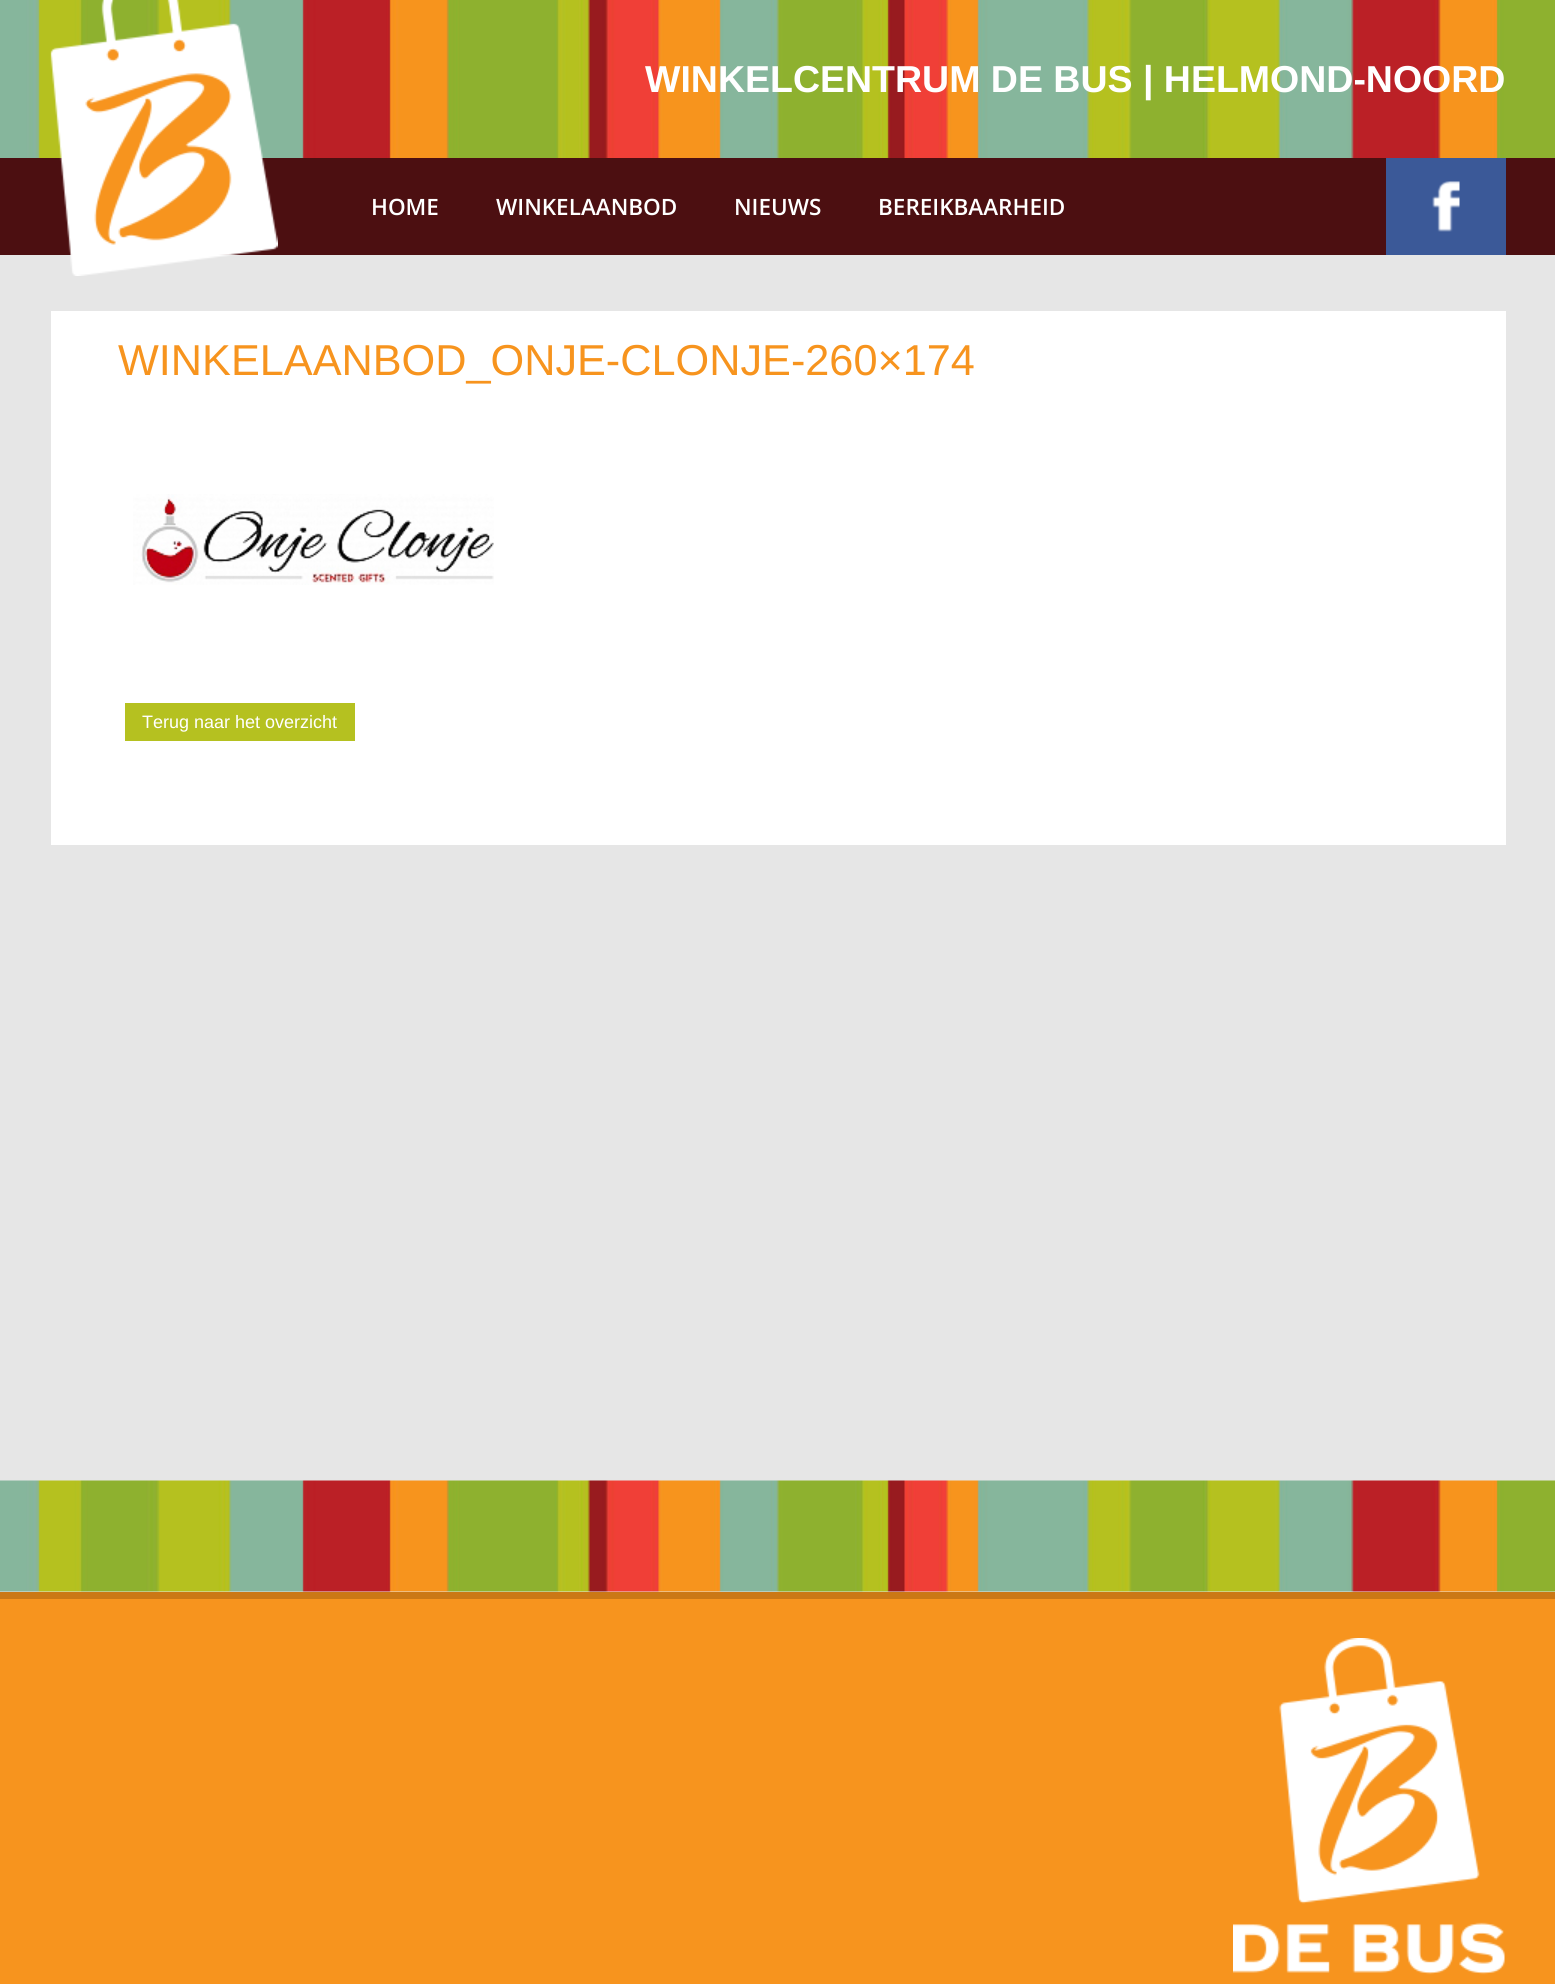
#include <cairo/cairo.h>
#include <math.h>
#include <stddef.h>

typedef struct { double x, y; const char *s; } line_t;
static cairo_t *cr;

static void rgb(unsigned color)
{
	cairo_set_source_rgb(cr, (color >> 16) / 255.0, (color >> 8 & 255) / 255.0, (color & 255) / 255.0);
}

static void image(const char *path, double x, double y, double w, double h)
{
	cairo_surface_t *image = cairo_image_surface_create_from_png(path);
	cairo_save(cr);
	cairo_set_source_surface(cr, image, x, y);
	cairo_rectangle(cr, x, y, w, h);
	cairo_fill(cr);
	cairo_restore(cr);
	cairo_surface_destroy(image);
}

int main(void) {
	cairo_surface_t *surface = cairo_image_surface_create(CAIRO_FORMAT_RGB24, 1555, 1984);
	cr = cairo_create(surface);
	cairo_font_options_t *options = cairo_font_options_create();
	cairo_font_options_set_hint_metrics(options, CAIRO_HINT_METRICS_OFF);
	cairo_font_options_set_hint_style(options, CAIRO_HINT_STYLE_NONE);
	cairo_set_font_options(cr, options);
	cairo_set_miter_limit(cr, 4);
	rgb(0xe6e6e6);
	cairo_paint(cr);
	image("img/1.png", 0, 0, 1555, 158);
	rgb(0x4c0f11);
	cairo_rectangle(cr, 0, 158, 1555, 97);
	cairo_fill(cr);
	image("img/2.png", 50, 0, 228, 276);
	rgb(0x3b5998);
	cairo_rectangle(cr, 1386, 158, 120, 97);
	cairo_fill(cr);
	image("img/3.png", 1432, 181, 28, 51);
	rgb(0xffffff);
	cairo_rectangle(cr, 51, 311, 1455, 534);
	cairo_fill(cr);
	image("img/4.png", 133, 494, 361, 91);
	rgb(0xb5c120);
	cairo_rectangle(cr, 125, 703, 230, 38);
	cairo_fill(cr);
	image("img/5.png", 0, 1480, 1555, 112);
	rgb(0xf7941e);
	cairo_rectangle(cr, 0, 1599, 1555, 385);
	cairo_fill(cr);
	rgb(0xcb7815);
	cairo_rectangle(cr, 0, 1592, 1555, 7);
	cairo_fill(cr);
	image("img/6.png", 1233, 1638, 272, 337);
	cairo_select_font_face(cr, "Arimo", CAIRO_FONT_SLANT_NORMAL, CAIRO_FONT_WEIGHT_BOLD);
	cairo_set_font_size(cr, 37.5);
	rgb(0xffffff);
	cairo_move_to(cr, 645, 92);
	cairo_show_text(cr, "WINKELCENTRUM DE BUS | HELMOND-NOORD");
	cairo_select_font_face(cr, "Open Sans SemiBold", CAIRO_FONT_SLANT_NORMAL, CAIRO_FONT_WEIGHT_NORMAL);
	cairo_set_font_size(cr, 22.5);
	{
		static const line_t items[] = {
			{371, 215, "HOME"},
			{496, 215, "WINKELAANBOD"},
			{734, 215, "NIEUWS"},
			{878, 215, "BEREIKBAARHEID"},
		};
		for (size_t i = 0; i < sizeof items / sizeof *items; i++) {
			cairo_move_to(cr, items[i].x, items[i].y);
			cairo_show_text(cr, items[i].s);
		}
	}
	cairo_select_font_face(cr, "Arimo", CAIRO_FONT_SLANT_NORMAL, CAIRO_FONT_WEIGHT_NORMAL);
	cairo_set_font_size(cr, 43.25);
	rgb(0xf7941e);
	cairo_move_to(cr, 118, 375);
	cairo_show_text(cr, "WINKELAANBOD_ONJE-CLONJE-260×174");
	cairo_select_font_face(cr, "Liberation Sans", CAIRO_FONT_SLANT_NORMAL, CAIRO_FONT_WEIGHT_NORMAL);
	cairo_set_font_size(cr, 18);
	rgb(0xffffff);
	cairo_move_to(cr, 142, 728);
	cairo_show_text(cr, "Terug naar het overzicht");
	cairo_surface_write_to_png(surface, "page.png");
	cairo_font_options_destroy(options);
	cairo_destroy(cr);
	cairo_surface_destroy(surface);
	return 0;
}
